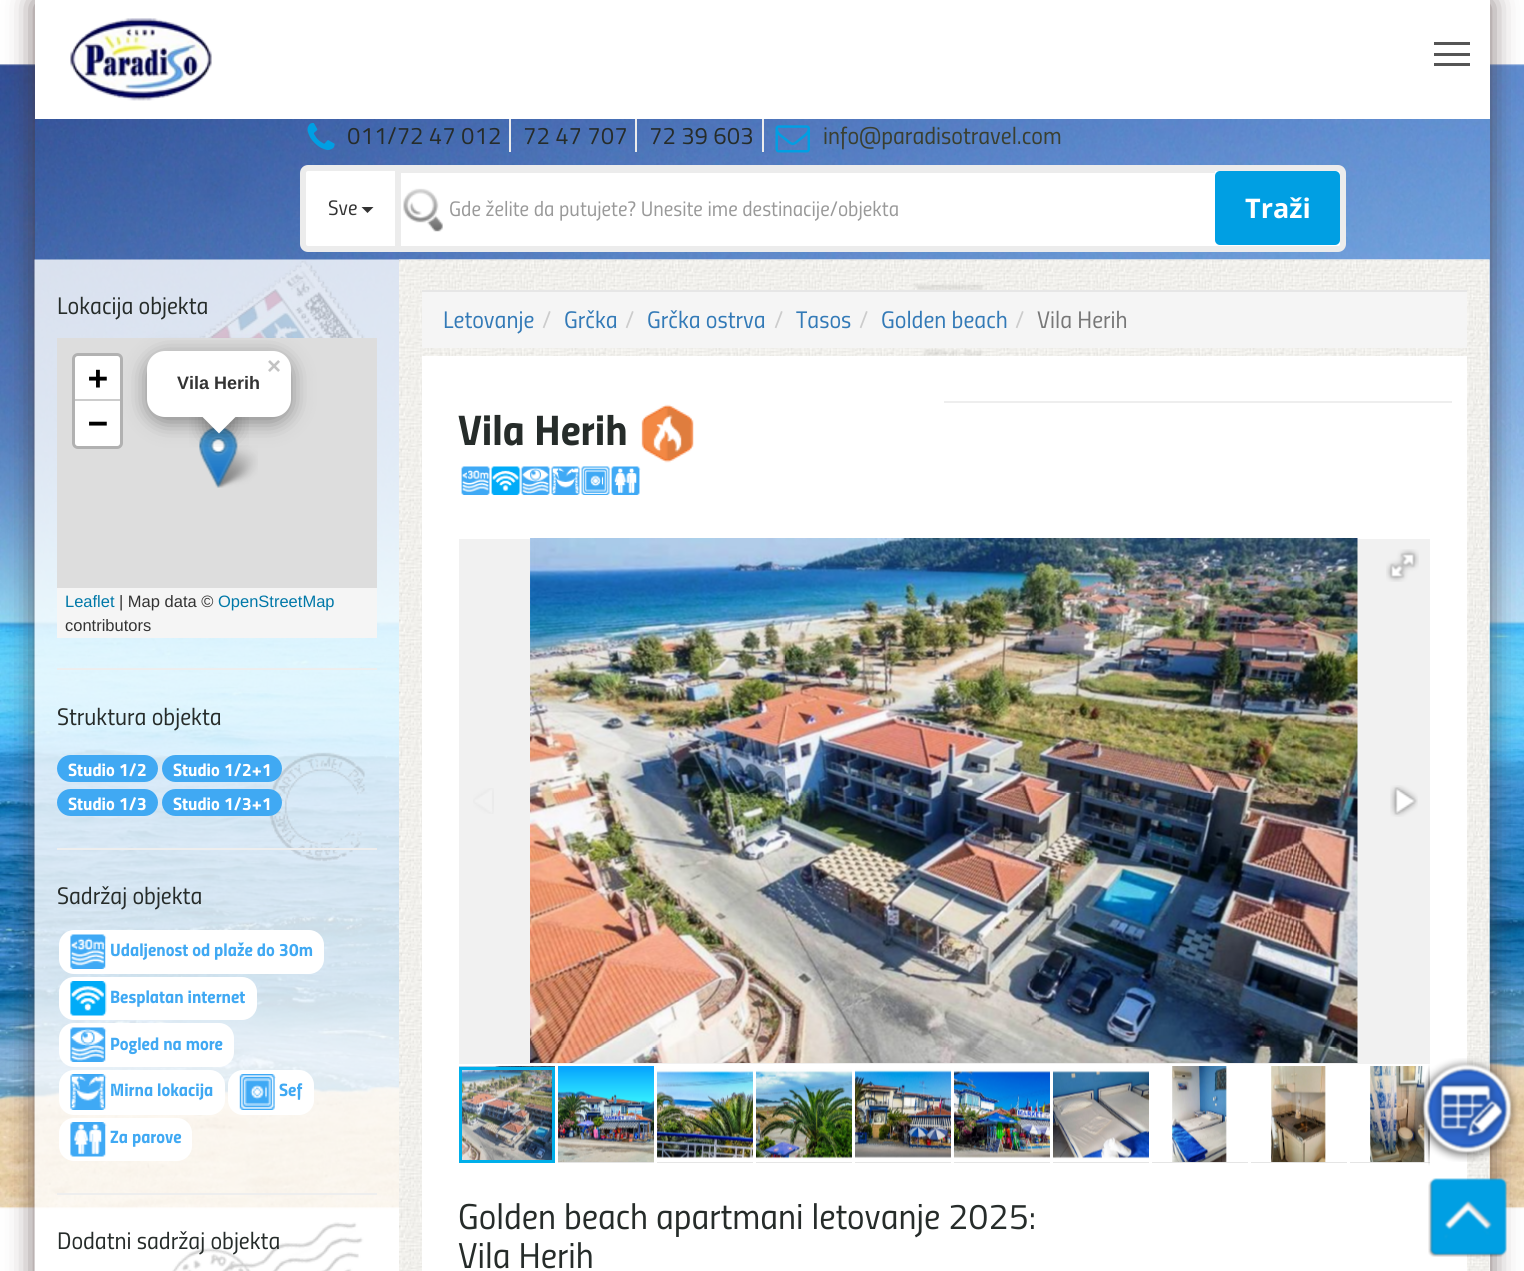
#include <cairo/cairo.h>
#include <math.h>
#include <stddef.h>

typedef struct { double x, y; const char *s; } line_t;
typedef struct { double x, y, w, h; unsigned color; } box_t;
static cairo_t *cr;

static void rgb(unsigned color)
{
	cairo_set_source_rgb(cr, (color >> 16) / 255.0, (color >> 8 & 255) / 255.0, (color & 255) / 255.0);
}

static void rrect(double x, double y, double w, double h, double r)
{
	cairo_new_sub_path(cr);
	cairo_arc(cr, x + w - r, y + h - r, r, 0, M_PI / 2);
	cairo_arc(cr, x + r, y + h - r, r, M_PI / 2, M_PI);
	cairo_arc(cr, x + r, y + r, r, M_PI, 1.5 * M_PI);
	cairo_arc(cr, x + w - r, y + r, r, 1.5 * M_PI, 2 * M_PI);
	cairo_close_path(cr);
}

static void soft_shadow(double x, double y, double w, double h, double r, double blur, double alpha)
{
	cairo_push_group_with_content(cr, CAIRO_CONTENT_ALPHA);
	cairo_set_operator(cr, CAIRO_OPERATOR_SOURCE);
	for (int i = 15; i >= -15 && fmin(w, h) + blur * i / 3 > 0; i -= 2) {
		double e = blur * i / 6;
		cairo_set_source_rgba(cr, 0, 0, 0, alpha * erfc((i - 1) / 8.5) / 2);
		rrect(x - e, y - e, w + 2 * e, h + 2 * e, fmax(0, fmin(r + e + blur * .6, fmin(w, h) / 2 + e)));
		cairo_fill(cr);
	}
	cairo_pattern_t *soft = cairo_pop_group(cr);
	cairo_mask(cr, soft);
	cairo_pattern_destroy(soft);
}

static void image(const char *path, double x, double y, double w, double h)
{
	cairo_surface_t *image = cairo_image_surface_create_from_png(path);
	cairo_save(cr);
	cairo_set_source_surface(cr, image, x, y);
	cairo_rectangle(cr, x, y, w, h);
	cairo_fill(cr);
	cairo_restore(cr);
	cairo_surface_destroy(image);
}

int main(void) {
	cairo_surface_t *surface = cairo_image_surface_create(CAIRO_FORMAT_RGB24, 1524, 1271);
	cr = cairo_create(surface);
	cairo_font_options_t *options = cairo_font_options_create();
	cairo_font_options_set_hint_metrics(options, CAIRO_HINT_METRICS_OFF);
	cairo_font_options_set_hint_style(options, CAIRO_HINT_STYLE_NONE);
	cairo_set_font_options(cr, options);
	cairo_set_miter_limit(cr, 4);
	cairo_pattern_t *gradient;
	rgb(0xffffff);
	cairo_paint(cr);
	image("img/1.png", 0, 64, 1524, 1145);
	cairo_save(cr);
	cairo_set_fill_rule(cr, CAIRO_FILL_RULE_EVEN_ODD);
	cairo_new_path(cr);
	cairo_move_to(cr, 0, 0);
	cairo_line_to(cr, 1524, 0);
	cairo_line_to(cr, 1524, 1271);
	cairo_line_to(cr, 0, 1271);
	cairo_close_path(cr);
	cairo_move_to(cr, 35, 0);
	cairo_line_to(cr, 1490, 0);
	cairo_line_to(cr, 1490, 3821);
	cairo_line_to(cr, 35, 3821);
	cairo_close_path(cr);
	cairo_clip(cr);
	rgb(0x473232);
	soft_shadow(35, 2, 1455, 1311, 0, 14, 0.75);
	cairo_restore(cr);
	rgb(0xffffff);
	cairo_rectangle(cr, 35, 0, 1455, 119);
	cairo_fill(cr);
	image("img/2.png", 70, 18, 142, 83);
	{
		static const box_t items[] = {
			{1434, 53, 36, 3, 0x555555},
			{1434, 42, 36, 3, 0x555555},
			{1434, 63, 36, 3, 0x555555},
			{509, 119, 2, 33, 0xececec},
		};
		for (size_t i = 0; i < sizeof items / sizeof *items; i++) {
			rgb(items[i].color);
			cairo_rectangle(cr, items[i].x, items[i].y, items[i].w, items[i].h);
			cairo_fill(cr);
		}
	}
	image("img/3.png", 307, 123, 28, 27);
	cairo_rectangle(cr, 635, 119, 2, 33);
	cairo_fill(cr);
	cairo_rectangle(cr, 762, 119, 2, 33);
	cairo_fill(cr);
	image("img/4.png", 775, 125, 35, 28);
	rgb(0xffffff);
	rrect(303, 168, 1040, 81, 5);
	cairo_fill_preserve(cr);
	rgb(0xececec);
	cairo_set_line_width(cr, 6);
	cairo_stroke(cr);
	rgb(0x333333);
	cairo_new_path(cr);
	cairo_move_to(cr, 361.5, 207);
	cairo_line_to(cr, 373.5, 207);
	cairo_line_to(cr, 367.5, 213);
	cairo_close_path(cr);
	cairo_fill(cr);
	image("img/5.png", 403, 188, 40, 44);
	rgb(0xececec);
	cairo_rectangle(cr, 401, 171, 814, 2);
	cairo_fill(cr);
	cairo_rectangle(cr, 395, 171, 6, 75);
	cairo_fill(cr);
	rgb(0x009fe3);
	rrect(1215, 171, 125, 74, 5);
	cairo_fill(cr);
	image("img/6.png", 34, 259, 1456, 1012);
	rgb(0xdddddd);
	cairo_rectangle(cr, 57, 338, 320, 250);
	cairo_fill(cr);
	image("img/8.png", 213, 445, 45, 43);
	image("img/7.png", 199, 427, 39, 61);
	rgb(0x000000);
	soft_shadow(147, 356, 144, 66, 18, 10.5, 0.4);
	rgb(0xffffff);
	rrect(147, 351, 144, 66, 18);
	cairo_fill(cr);
	cairo_save(cr);
	cairo_rectangle(cr, 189, 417, 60, 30);
	cairo_clip(cr);
	rgb(0x000000);
	soft_shadow(207, 407, 26, 25, 0, 10.5, 0.4);
	cairo_restore(cr);
	cairo_save(cr);
	cairo_rectangle(cr, 189, 417, 60, 30);
	cairo_clip(cr);
	cairo_new_path(cr);
	cairo_move_to(cr, 219, 397);
	cairo_line_to(cr, 237, 415.5);
	cairo_line_to(cr, 219, 433.5);
	cairo_line_to(cr, 201, 415.5);
	cairo_close_path(cr);
	cairo_fill(cr);
	cairo_restore(cr);
	rrect(73.5, 354.5, 48, 93, 4.5);
	rgb(0xb1b1b1);
	cairo_set_line_width(cr, 3);
	cairo_stroke(cr);
	rgb(0xffffff);
	cairo_new_path(cr);
	cairo_move_to(cr, 78, 356);
	cairo_line_to(cr, 117, 356);
	cairo_curve_to(cr, 118.5, 356, 120, 357.5, 120, 359);
	cairo_line_to(cr, 120, 401);
	cairo_line_to(cr, 75, 401);
	cairo_line_to(cr, 75, 359);
	cairo_curve_to(cr, 75, 357.5, 76.5, 356, 78, 356);
	cairo_close_path(cr);
	cairo_fill(cr);
	rgb(0xcccccc);
	cairo_rectangle(cr, 75, 399, 45, 2);
	cairo_fill(cr);
	rgb(0xffffff);
	cairo_new_path(cr);
	cairo_move_to(cr, 75, 401);
	cairo_line_to(cr, 120, 401);
	cairo_line_to(cr, 120, 443);
	cairo_curve_to(cr, 120, 444.5, 118.5, 446, 117, 446);
	cairo_line_to(cr, 78, 446);
	cairo_curve_to(cr, 76.5, 446, 75, 444.5, 75, 443);
	cairo_close_path(cr);
	cairo_fill(cr);
	rgb(0xf5f5f5);
	cairo_rectangle(cr, 57, 588, 320, 50);
	cairo_fill(cr);
	rgb(0xeeeeee);
	cairo_rectangle(cr, 57, 668, 320, 2);
	cairo_fill(cr);
	rgb(0x40a9f3);
	rrect(57, 755, 101, 27, 13.5);
	cairo_fill(cr);
	rrect(162, 755, 120, 27, 13.5);
	cairo_fill(cr);
	rrect(57, 789, 101, 27, 13.5);
	cairo_fill(cr);
	rrect(162, 789, 120, 27, 13.5);
	cairo_fill(cr);
	rgb(0xeeeeee);
	cairo_rectangle(cr, 57, 848, 320, 2);
	cairo_fill(cr);
	rgb(0xffffff);
	rrect(59, 930, 265, 44, 15);
	cairo_fill(cr);
	image("img/9.png", 70, 934, 37, 35);
	rrect(59, 977, 198, 43, 15);
	cairo_fill(cr);
	image("img/10.png", 70, 981, 37, 35);
	rrect(59, 1023, 175, 44, 15);
	cairo_fill(cr);
	image("img/11.png", 70, 1027, 37, 35);
	rrect(59, 1070, 166, 45, 15);
	cairo_fill(cr);
	image("img/12.png", 70, 1074, 37, 36);
	rrect(228, 1070, 86, 45, 15);
	cairo_fill(cr);
	image("img/13.png", 239, 1074, 37, 36);
	rrect(59, 1118, 133, 43, 15);
	cairo_fill(cr);
	image("img/14.png", 70, 1122, 37, 35);
	rgb(0xeeeeee);
	cairo_rectangle(cr, 57, 1193, 320, 2);
	cairo_fill(cr);
	image("img/15.png", 399, 259, 1091, 1012);
	{
		static const box_t items[] = {
			{422, 292, 1045, 56, 0xf5f5f5},
			{422, 290, 1045, 2, 0xe6e6e6},
			{422, 356, 1045, 915, 0xffffff},
			{944, 401, 508, 2, 0xeeeeee},
		};
		for (size_t i = 0; i < sizeof items / sizeof *items; i++) {
			rgb(items[i].color);
			cairo_rectangle(cr, items[i].x, items[i].y, items[i].w, items[i].h);
			cairo_fill(cr);
		}
	}
	image("img/16.png", 641, 404, 53, 59);
	image("img/17.png", 461, 466, 30, 29);
	image("img/18.png", 491, 466, 30, 29);
	image("img/19.png", 521, 466, 30, 29);
	image("img/20.png", 551, 466, 30, 29);
	image("img/21.png", 581, 466, 30, 29);
	image("img/22.png", 611, 466, 30, 29);
	rgb(0xf1f1f1);
	cairo_rectangle(cr, 459, 539, 971, 525);
	cairo_fill(cr);
	image("img/23.png", 530, 538, 828, 525);
	image("img/24.png", 1386, 549, 33, 33);
	image("img/25.png", 473, 788, 21, 26);
	image("img/26.png", 1390, 785, 28, 32);
	rgb(0xe5e5e5);
	cairo_rectangle(cr, 1350, 1162, 80, 1);
	cairo_fill(cr);
	image("img/31.png", 1350, 1066, 80, 96);
	gradient = cairo_pattern_create_radial(0, 0, 0, 0, 0, 1);
	cairo_pattern_set_matrix(gradient, &(cairo_matrix_t){1.0 / 7.5, 0, 0, 1.0 / 51, -1.0 * 1430 / 7.5, -1.0 * 1115 / 51});
	cairo_pattern_add_color_stop_rgba(gradient, 0, 0, 0, 0, 0.4);
	cairo_pattern_add_color_stop_rgba(gradient, 1, 0, 0, 0, 0);
	cairo_set_source(cr, gradient);
	cairo_pattern_destroy(gradient);
	cairo_rectangle(cr, 1423, 1064, 7, 102);
	cairo_fill(cr);
	gradient = cairo_pattern_create_linear(1429, 1064, 1429, 1166);
	cairo_pattern_add_color_stop_rgba(gradient, 0, 0, 0, 0, 0);
	cairo_pattern_add_color_stop_rgba(gradient, 0.25, 0, 0, 0, 0.2);
	cairo_pattern_add_color_stop_rgba(gradient, 0.75, 0, 0, 0, 0.3);
	cairo_pattern_add_color_stop_rgba(gradient, 1, 0, 0, 0, 0);
	cairo_set_source(cr, gradient);
	cairo_pattern_destroy(gradient);
	cairo_rectangle(cr, 1428, 1064, 2, 102);
	cairo_fill(cr);
	image("img/27.png", 459, 1066, 96, 94);
	rgb(0xe5e5e5);
	cairo_rectangle(cr, 558, 1162, 96, 1);
	cairo_fill(cr);
	image("img/28.png", 558, 1066, 96, 96);
	cairo_rectangle(cr, 1152, 1162, 96, 1);
	cairo_fill(cr);
	image("img/29.png", 1152, 1066, 96, 96);
	cairo_rectangle(cr, 1251, 1162, 96, 1);
	cairo_fill(cr);
	image("img/30.png", 1251, 1066, 96, 96);
	cairo_rectangle(cr, 460.5, 1068.5, 93, 93);
	rgb(0x00afea);
	cairo_stroke(cr);
	rgb(0xe5e5e5);
	cairo_rectangle(cr, 657, 1162, 96, 1);
	cairo_fill(cr);
	image("img/32.png", 657, 1067, 96, 95);
	cairo_rectangle(cr, 756, 1162, 96, 1);
	cairo_fill(cr);
	image("img/33.png", 756, 1067, 96, 95);
	cairo_rectangle(cr, 855, 1162, 96, 1);
	cairo_fill(cr);
	image("img/34.png", 855, 1067, 96, 95);
	cairo_rectangle(cr, 954, 1162, 96, 1);
	cairo_fill(cr);
	image("img/35.png", 954, 1067, 96, 95);
	cairo_rectangle(cr, 1053, 1162, 96, 1);
	cairo_fill(cr);
	image("img/36.png", 1053, 1067, 96, 95);
	image("img/39.png", 1428, 1178, 79, 79);
	image("img/37.png", 1428, 1178, 79, 79);
	image("img/38.png", 1414, 1058, 104, 104);
	cairo_select_font_face(cr, "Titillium", CAIRO_FONT_SLANT_NORMAL, CAIRO_FONT_WEIGHT_NORMAL);
	cairo_set_font_size(cr, 24);
	rgb(0x262c2a);
	{
		static const line_t items[] = {
			{347, 144, "011/72 47 012"},
			{523, 144, "72 47 707"},
			{649, 144, "72 39 603"},
		};
		for (size_t i = 0; i < sizeof items / sizeof *items; i++) {
			cairo_move_to(cr, items[i].x, items[i].y);
			cairo_show_text(cr, items[i].s);
		}
	}
	rgb(0x3a3f30);
	cairo_move_to(cr, 823, 144);
	cairo_show_text(cr, "info@paradisotravel.com");
	cairo_set_font_size(cr, 21);
	rgb(0x333333);
	cairo_move_to(cr, 328, 215);
	cairo_show_text(cr, "Sve");
	rgb(0x999999);
	cairo_move_to(cr, 449, 216);
	cairo_show_text(cr, "Gde želite da putujete? Unesite ime destinacije/objekta");
	cairo_select_font_face(cr, "Open Sans", CAIRO_FONT_SLANT_NORMAL, CAIRO_FONT_WEIGHT_BOLD);
	cairo_set_font_size(cr, 27);
	rgb(0xffffff);
	cairo_move_to(cr, 1245, 218);
	cairo_show_text(cr, "Traži");
	cairo_select_font_face(cr, "Titillium", CAIRO_FONT_SLANT_NORMAL, CAIRO_FONT_WEIGHT_NORMAL);
	cairo_set_font_size(cr, 24);
	rgb(0x262c2a);
	cairo_move_to(cr, 57, 314);
	cairo_show_text(cr, "Lokacija objekta");
	cairo_select_font_face(cr, "Liberation Sans", CAIRO_FONT_SLANT_NORMAL, CAIRO_FONT_WEIGHT_BOLD);
	rgb(0xc3c3c3);
	cairo_move_to(cr, 267, 374);
	cairo_show_text(cr, "×");
	cairo_set_font_size(cr, 18);
	rgb(0x333333);
	cairo_move_to(cr, 177, 389);
	cairo_show_text(cr, "Vila Herih");
	cairo_select_font_face(cr, "DejaVu Sans Mono", CAIRO_FONT_SLANT_NORMAL, CAIRO_FONT_WEIGHT_BOLD);
	cairo_set_font_size(cr, 33);
	rgb(0x000000);
	cairo_move_to(cr, 88, 389);
	cairo_show_text(cr, "+");
	cairo_move_to(cr, 88, 434);
	cairo_show_text(cr, "−");
	cairo_select_font_face(cr, "Liberation Sans", CAIRO_FONT_SLANT_NORMAL, CAIRO_FONT_WEIGHT_NORMAL);
	cairo_set_font_size(cr, 16.5);
	rgb(0x0078a8);
	cairo_move_to(cr, 65, 607);
	cairo_show_text(cr, "Leaflet");
	rgb(0x333333);
	cairo_move_to(cr, 119, 607);
	cairo_show_text(cr, "| Map data ©");
	rgb(0x0078a8);
	cairo_move_to(cr, 218, 607);
	cairo_show_text(cr, "OpenStreetMap");
	rgb(0x333333);
	cairo_move_to(cr, 65, 631);
	cairo_show_text(cr, "contributors");
	cairo_select_font_face(cr, "Titillium", CAIRO_FONT_SLANT_NORMAL, CAIRO_FONT_WEIGHT_NORMAL);
	cairo_set_font_size(cr, 24);
	rgb(0x262c2a);
	cairo_move_to(cr, 57, 725);
	cairo_show_text(cr, "Struktura objekta");
	cairo_select_font_face(cr, "Titillium", CAIRO_FONT_SLANT_ITALIC, CAIRO_FONT_WEIGHT_BOLD);
	cairo_set_font_size(cr, 18);
	rgb(0xffffff);
	{
		static const line_t items[] = {
			{68, 776, "Studio 1/2"},
			{173, 776, "Studio 1/2+1"},
			{68, 810, "Studio 1/3"},
			{173, 810, "Studio 1/3+1"},
		};
		for (size_t i = 0; i < sizeof items / sizeof *items; i++) {
			cairo_move_to(cr, items[i].x, items[i].y);
			cairo_show_text(cr, items[i].s);
		}
	}
	cairo_select_font_face(cr, "Titillium", CAIRO_FONT_SLANT_NORMAL, CAIRO_FONT_WEIGHT_NORMAL);
	cairo_set_font_size(cr, 24);
	rgb(0x262c2a);
	cairo_move_to(cr, 57, 904);
	cairo_show_text(cr, "Sadržaj objekta");
	cairo_select_font_face(cr, "Titillium", CAIRO_FONT_SLANT_ITALIC, CAIRO_FONT_WEIGHT_BOLD);
	cairo_set_font_size(cr, 18);
	rgb(0x40a9f3);
	{
		static const line_t items[] = {
			{110, 956, "Udaljenost od plaže do 30m"},
			{110, 1003, "Besplatan internet"},
			{110, 1050, "Pogled na more"},
			{110, 1096, "Mirna lokacija"},
			{279, 1096, "Sef"},
			{110, 1143, "Za parove"},
		};
		for (size_t i = 0; i < sizeof items / sizeof *items; i++) {
			cairo_move_to(cr, items[i].x, items[i].y);
			cairo_show_text(cr, items[i].s);
		}
	}
	cairo_select_font_face(cr, "Titillium", CAIRO_FONT_SLANT_NORMAL, CAIRO_FONT_WEIGHT_NORMAL);
	cairo_set_font_size(cr, 24);
	rgb(0x262c2a);
	cairo_move_to(cr, 57, 1249);
	cairo_show_text(cr, "Dodatni sadržaj objekta");
	rgb(0x337ab7);
	cairo_move_to(cr, 443, 328);
	cairo_show_text(cr, "Letovanje");
	rgb(0xcccccc);
	cairo_move_to(cr, 542, 328);
	cairo_show_text(cr, "/");
	rgb(0x337ab7);
	cairo_move_to(cr, 564, 328);
	cairo_show_text(cr, "Grčka");
	rgb(0xcccccc);
	cairo_move_to(cr, 625, 328);
	cairo_show_text(cr, "/");
	rgb(0x337ab7);
	cairo_move_to(cr, 647, 328);
	cairo_show_text(cr, "Grčka ostrva");
	rgb(0xcccccc);
	cairo_move_to(cr, 774, 328);
	cairo_show_text(cr, "/");
	rgb(0x337ab7);
	cairo_move_to(cr, 796, 328);
	cairo_show_text(cr, "Tasos");
	rgb(0xcccccc);
	cairo_move_to(cr, 859, 328);
	cairo_show_text(cr, "/");
	rgb(0x337ab7);
	cairo_move_to(cr, 881, 328);
	cairo_show_text(cr, "Golden beach");
	rgb(0xcccccc);
	cairo_move_to(cr, 1015, 328);
	cairo_show_text(cr, "/");
	rgb(0x777777);
	cairo_move_to(cr, 1037, 328);
	cairo_show_text(cr, "Vila Herih");
	cairo_select_font_face(cr, "Titillium", CAIRO_FONT_SLANT_ITALIC, CAIRO_FONT_WEIGHT_BOLD);
	cairo_set_font_size(cr, 43);
	rgb(0x262c2a);
	cairo_move_to(cr, 458, 445);
	cairo_show_text(cr, "Vila Herih");
	cairo_select_font_face(cr, "Titillium", CAIRO_FONT_SLANT_NORMAL, CAIRO_FONT_WEIGHT_NORMAL);
	cairo_set_font_size(cr, 36);
	cairo_move_to(cr, 458, 1229);
	cairo_show_text(cr, "Golden beach apartmani letovanje 2025:");
	cairo_move_to(cr, 458, 1268);
	cairo_show_text(cr, "Vila Herih");
	cairo_surface_write_to_png(surface, "page.png");
	cairo_font_options_destroy(options);
	cairo_destroy(cr);
	cairo_surface_destroy(surface);
	return 0;
}
